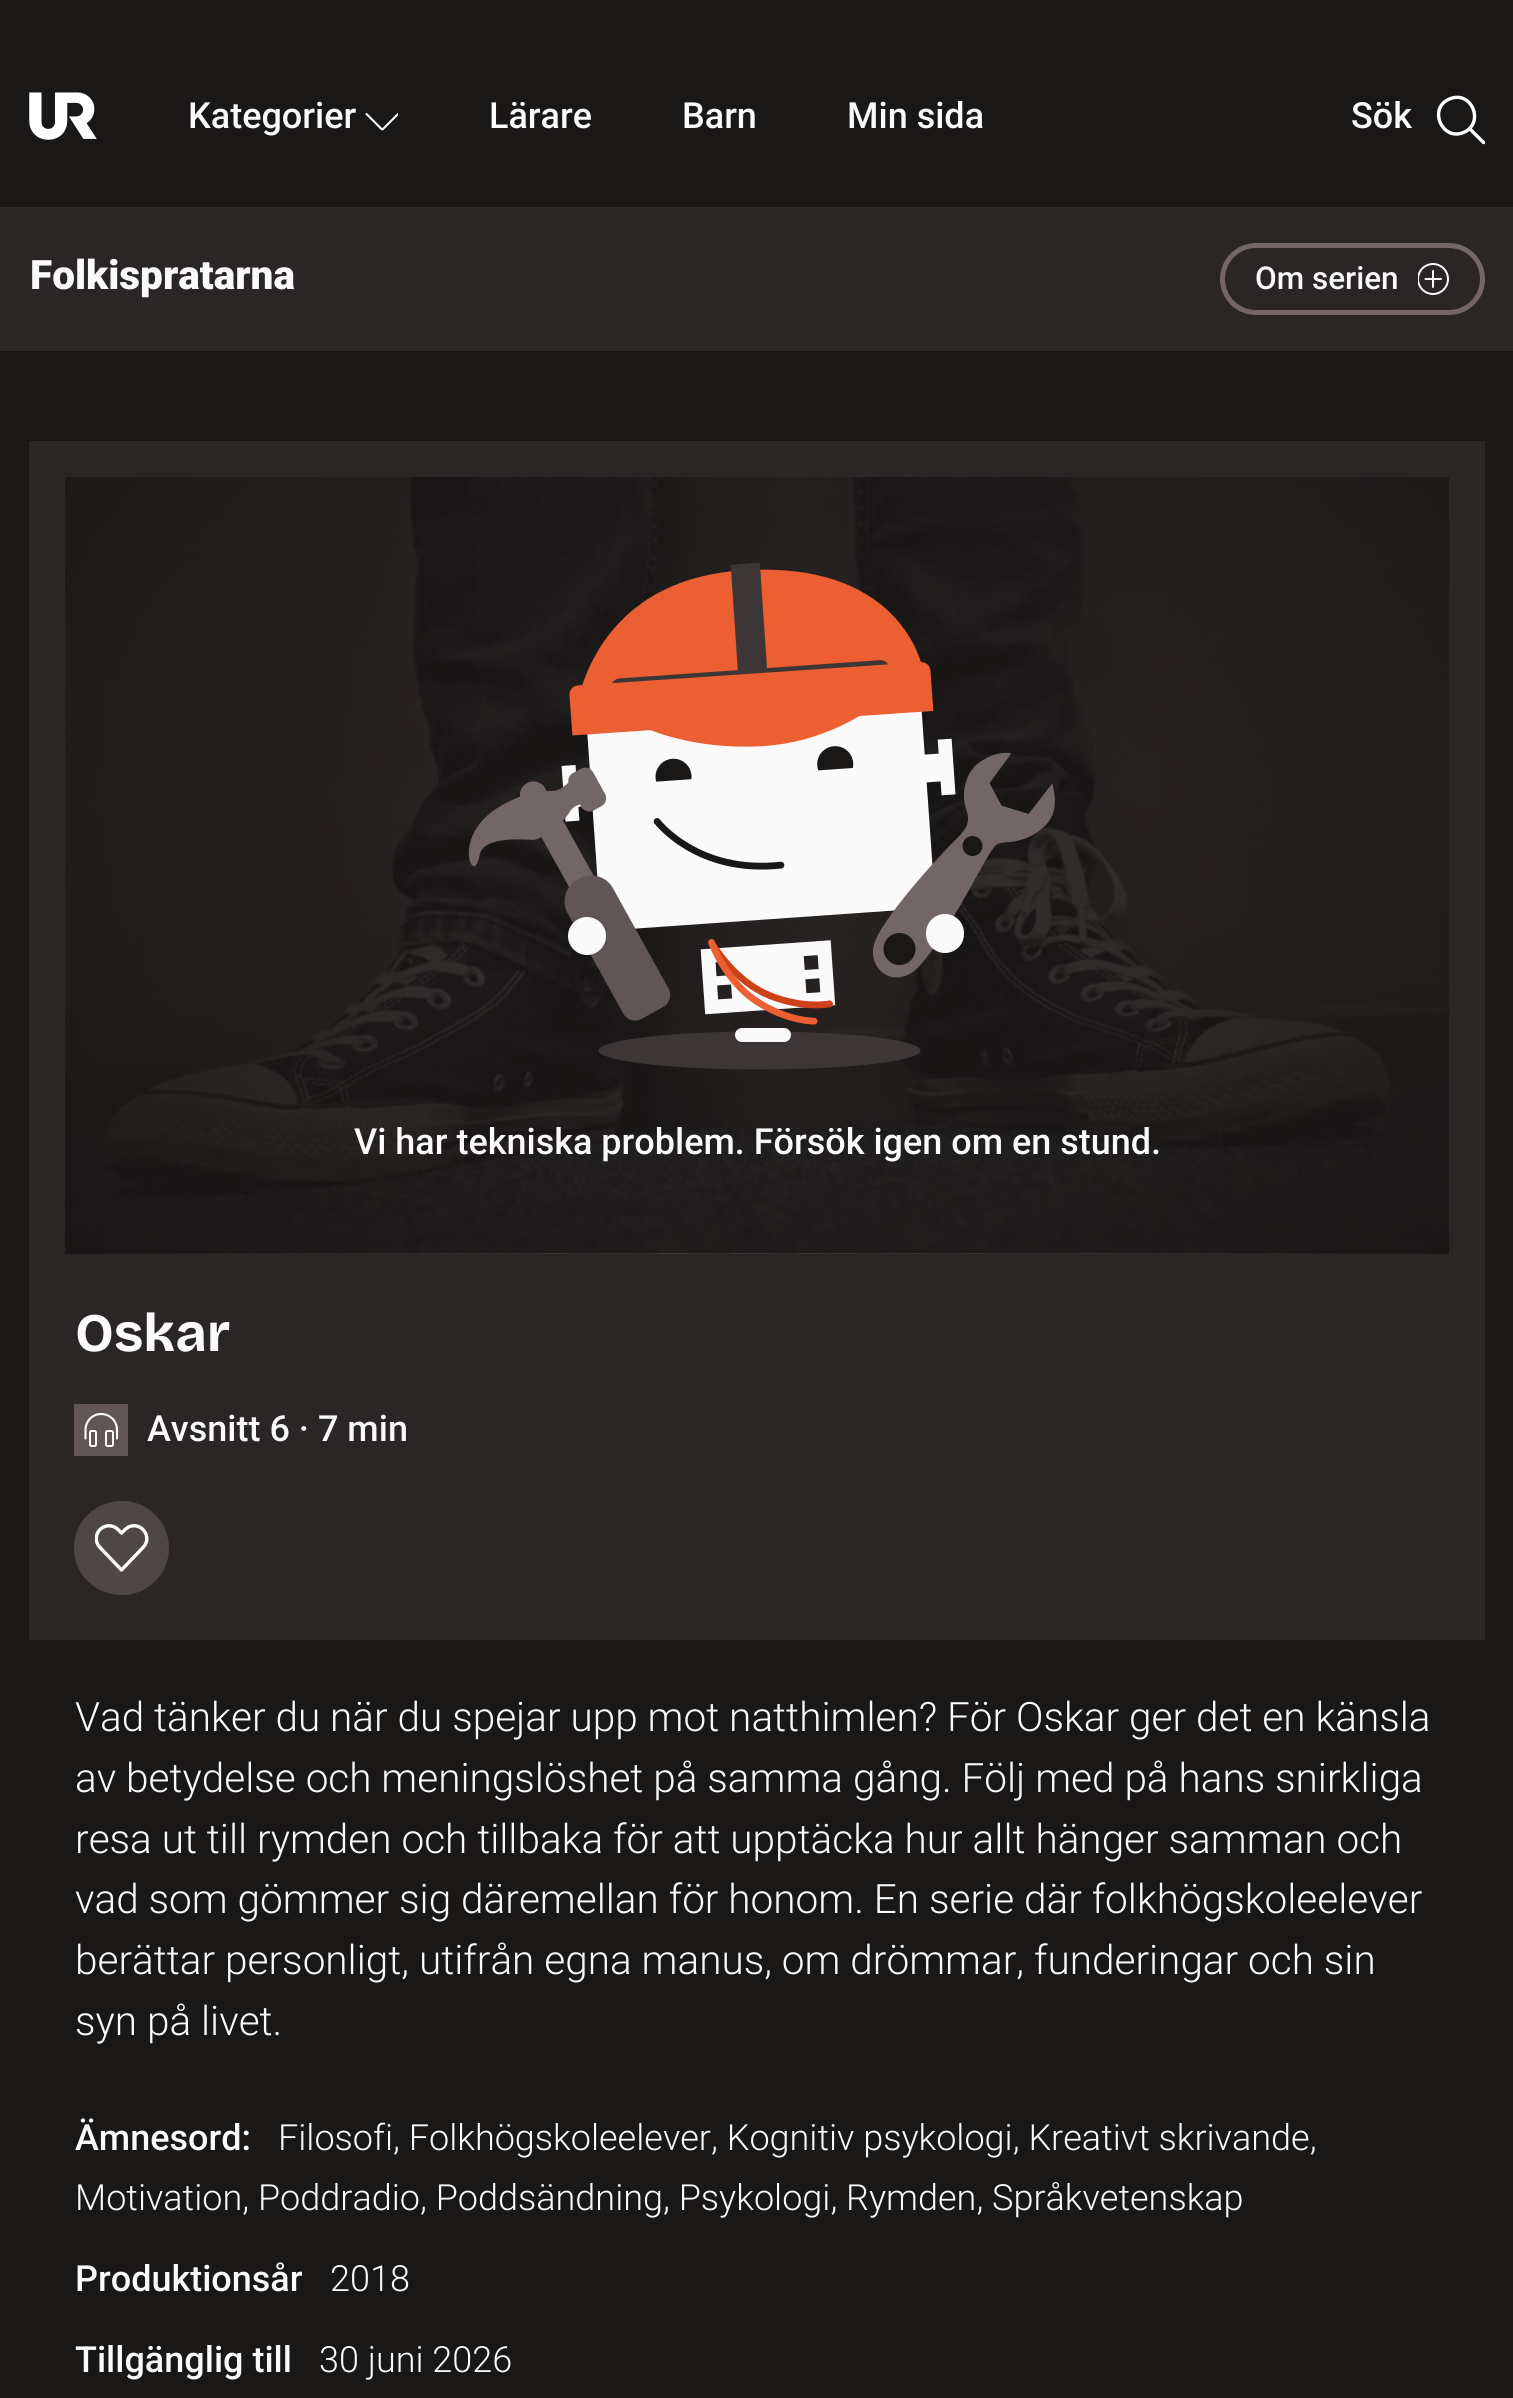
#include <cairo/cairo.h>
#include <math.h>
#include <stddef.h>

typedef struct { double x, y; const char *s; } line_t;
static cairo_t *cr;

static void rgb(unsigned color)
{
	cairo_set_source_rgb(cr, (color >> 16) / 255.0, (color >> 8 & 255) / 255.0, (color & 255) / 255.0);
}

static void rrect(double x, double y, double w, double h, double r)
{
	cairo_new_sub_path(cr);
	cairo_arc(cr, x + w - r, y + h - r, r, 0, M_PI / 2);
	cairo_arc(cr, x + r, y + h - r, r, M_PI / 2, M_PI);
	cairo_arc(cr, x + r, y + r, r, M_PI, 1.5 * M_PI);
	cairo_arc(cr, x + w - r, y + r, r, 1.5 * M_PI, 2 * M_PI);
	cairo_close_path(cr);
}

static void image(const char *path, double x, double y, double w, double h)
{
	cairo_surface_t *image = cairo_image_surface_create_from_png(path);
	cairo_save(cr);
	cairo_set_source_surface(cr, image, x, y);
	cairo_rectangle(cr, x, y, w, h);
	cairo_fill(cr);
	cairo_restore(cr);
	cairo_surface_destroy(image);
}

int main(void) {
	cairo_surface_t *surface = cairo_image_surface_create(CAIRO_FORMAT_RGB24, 1513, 2398);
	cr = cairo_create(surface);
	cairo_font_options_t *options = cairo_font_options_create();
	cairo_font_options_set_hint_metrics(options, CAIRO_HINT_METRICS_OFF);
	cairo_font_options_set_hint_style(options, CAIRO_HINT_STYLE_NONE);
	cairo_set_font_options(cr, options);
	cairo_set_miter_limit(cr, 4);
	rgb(0x1a1717);
	cairo_paint(cr);
	image("img/1.png", 29, 92, 68, 48);
	cairo_save(cr);
	cairo_rectangle(cr, 365, 104, 33, 33);
	cairo_clip(cr);
	cairo_new_path(cr);
	cairo_move_to(cr, 366.5, 114);
	cairo_line_to(cr, 381.5, 129);
	cairo_curve_to(cr, 382, 129.5, 382.5, 129.5, 383, 129);
	cairo_line_to(cr, 398, 114);
	rgb(0xfafafa);
	cairo_set_line_width(cr, 2.1);
	cairo_set_line_cap(cr, CAIRO_LINE_CAP_ROUND);
	cairo_set_line_join(cr, CAIRO_LINE_JOIN_ROUND);
	cairo_stroke(cr);
	cairo_restore(cr);
	cairo_new_path(cr);
	cairo_move_to(cr, 1449.5, 99);
	cairo_curve_to(cr, 1471.5, 89.5, 1485.5, 123, 1463.5, 132.5);
	cairo_curve_to(cr, 1442, 141.5, 1427.5, 108, 1449.5, 99);
	cairo_close_path(cr);
	cairo_move_to(cr, 1469.5, 128.5);
	cairo_line_to(cr, 1483.5, 142.5);
	rgb(0xffffff);
	cairo_set_line_width(cr, 3.4);
	cairo_set_line_cap(cr, CAIRO_LINE_CAP_ROUND);
	cairo_set_line_join(cr, CAIRO_LINE_JOIN_ROUND);
	cairo_stroke(cr);
	rgb(0x2b2626);
	cairo_rectangle(cr, 0, 207, 1513, 144);
	cairo_fill(cr);
	rrect(1222.5, 245.5, 260, 67, 33.5);
	rgb(0x736666);
	cairo_set_line_width(cr, 5);
	cairo_set_line_cap(cr, CAIRO_LINE_CAP_BUTT);
	cairo_set_line_join(cr, CAIRO_LINE_JOIN_MITER);
	cairo_stroke(cr);
	cairo_new_path(cr);
	cairo_move_to(cr, 1425.5, 279);
	cairo_line_to(cr, 1441, 279);
	cairo_move_to(cr, 1433, 271);
	cairo_line_to(cr, 1433, 287);
	rgb(0xfafafa);
	cairo_set_line_width(cr, 2);
	cairo_set_line_cap(cr, CAIRO_LINE_CAP_ROUND);
	cairo_set_line_join(cr, CAIRO_LINE_JOIN_ROUND);
	cairo_stroke(cr);
	cairo_save(cr);
	cairo_rectangle(cr, 1418, 263, 31, 32);
	cairo_clip(cr);
	cairo_arc(cr, 1433, 279, 15, 0, 2 * M_PI);
	cairo_set_line_cap(cr, CAIRO_LINE_CAP_BUTT);
	cairo_set_line_join(cr, CAIRO_LINE_JOIN_MITER);
	cairo_stroke(cr);
	cairo_restore(cr);
	rgb(0x2b2626);
	cairo_rectangle(cr, 29, 441, 1456, 1199);
	cairo_fill(cr);
	image("img/3.png", 65, 477, 1384, 777);
	image("img/2.png", 65, 477, 1384, 777);
	image("img/4.png", 468, 563, 587, 507);
	rgb(0x615656);
	cairo_rectangle(cr, 74, 1404, 54, 52);
	cairo_fill(cr);
	rrect(90, 1431, 6, 15, 1.5);
	rgb(0xfafafa);
	cairo_set_line_cap(cr, CAIRO_LINE_CAP_BUTT);
	cairo_set_line_join(cr, CAIRO_LINE_JOIN_MITER);
	cairo_stroke(cr);
	rrect(106, 1431, 7, 15, 1.5);
	cairo_stroke(cr);
	cairo_new_path(cr);
	cairo_move_to(cr, 85.5, 1438.5);
	cairo_line_to(cr, 85.5, 1430);
	cairo_curve_to(cr, 85.5, 1421, 92.5, 1414, 101, 1414);
	cairo_curve_to(cr, 110, 1414, 117, 1421, 117, 1430);
	cairo_line_to(cr, 117, 1438.5);
	cairo_set_line_width(cr, 2.1);
	cairo_set_line_cap(cr, CAIRO_LINE_CAP_ROUND);
	cairo_set_line_join(cr, CAIRO_LINE_JOIN_ROUND);
	cairo_stroke(cr);
	rgb(0x4f4646);
	rrect(74, 1501, 95, 94, 47);
	cairo_fill(cr);
	cairo_save(cr);
	cairo_rectangle(cr, 95, 1521, 54, 54);
	cairo_clip(cr);
	cairo_new_path(cr);
	cairo_move_to(cr, 121.5, 1570);
	cairo_line_to(cr, 100, 1547.5);
	cairo_curve_to(cr, 95, 1542.5, 95, 1534.5, 100, 1529.5);
	cairo_curve_to(cr, 105, 1524.5, 113, 1524.5, 118, 1529.5);
	cairo_line_to(cr, 121.5, 1533);
	cairo_curve_to(cr, 123.5, 1531, 126, 1528.5, 128.5, 1527);
	cairo_curve_to(cr, 141.5, 1521, 153, 1537.5, 143, 1547.5);
	cairo_close_path(cr);
	rgb(0xffffff);
	cairo_set_line_width(cr, 3.4);
	cairo_stroke(cr);
	cairo_restore(cr);
	cairo_select_font_face(cr, "Roboto Medium", CAIRO_FONT_SLANT_NORMAL, CAIRO_FONT_WEIGHT_NORMAL);
	cairo_set_font_size(cr, 36);
	rgb(0xfafafa);
	{
		static const line_t items[] = {
			{188, 128, "Kategorier"},
			{489, 128, "Lärare"},
			{682, 128, "Barn"},
			{847, 128, "Min sida"},
			{1351, 128, "Sök"},
		};
		for (size_t i = 0; i < sizeof items / sizeof *items; i++) {
			cairo_move_to(cr, items[i].x, items[i].y);
			cairo_show_text(cr, items[i].s);
		}
	}
	cairo_select_font_face(cr, "Roboto Black", CAIRO_FONT_SLANT_NORMAL, CAIRO_FONT_WEIGHT_NORMAL);
	cairo_set_font_size(cr, 40.5);
	cairo_move_to(cr, 30, 289);
	cairo_show_text(cr, "Folkispratarna");
	cairo_select_font_face(cr, "Roboto Medium", CAIRO_FONT_SLANT_NORMAL, CAIRO_FONT_WEIGHT_NORMAL);
	cairo_set_font_size(cr, 31.5);
	cairo_move_to(cr, 1255, 289);
	cairo_show_text(cr, "Om serien");
	cairo_set_font_size(cr, 36);
	cairo_move_to(cr, 354, 1154);
	cairo_show_text(cr, "Vi har tekniska problem. Försök igen om en stund.");
	cairo_select_font_face(cr, "Bricolage Grotesque ExtraBold", CAIRO_FONT_SLANT_NORMAL, CAIRO_FONT_WEIGHT_NORMAL);
	cairo_set_font_size(cr, 54);
	cairo_move_to(cr, 75, 1351);
	cairo_show_text(cr, "Oskar");
	cairo_select_font_face(cr, "Roboto Medium", CAIRO_FONT_SLANT_NORMAL, CAIRO_FONT_WEIGHT_NORMAL);
	cairo_set_font_size(cr, 36);
	cairo_move_to(cr, 147, 1441);
	cairo_show_text(cr, "Avsnitt 6 · 7 min");
	cairo_select_font_face(cr, "Roboto Light", CAIRO_FONT_SLANT_NORMAL, CAIRO_FONT_WEIGHT_NORMAL);
	cairo_set_font_size(cr, 40.5);
	{
		static const line_t items[] = {
			{75, 1731, "Vad tänker du när du spejar upp mot natthimlen? För Oskar ger det en känsla"},
			{75, 1792, "av betydelse och meningslöshet på samma gång. Följ med på hans snirkliga"},
			{75, 1853, "resa ut till rymden och tillbaka för att upptäcka hur allt hänger samman och"},
			{75, 1913, "vad som gömmer sig däremellan för honom. En serie där folkhögskoleelever"},
			{75, 1974, "berättar personligt, utifrån egna manus, om drömmar, funderingar och sin"},
			{75, 2035, "syn på livet."},
		};
		for (size_t i = 0; i < sizeof items / sizeof *items; i++) {
			cairo_move_to(cr, items[i].x, items[i].y);
			cairo_show_text(cr, items[i].s);
		}
	}
	cairo_select_font_face(cr, "Roboto Medium", CAIRO_FONT_SLANT_NORMAL, CAIRO_FONT_WEIGHT_NORMAL);
	cairo_set_font_size(cr, 36);
	cairo_move_to(cr, 75, 2150);
	cairo_show_text(cr, "Ämnesord:");
	cairo_select_font_face(cr, "Roboto Light", CAIRO_FONT_SLANT_NORMAL, CAIRO_FONT_WEIGHT_NORMAL);
	cairo_move_to(cr, 278, 2150);
	cairo_show_text(cr, "Filosofi, Folkhögskoleelever, Kognitiv psykologi, Kreativt skrivande,");
	cairo_move_to(cr, 75, 2210);
	cairo_show_text(cr, "Motivation, Poddradio, Poddsändning, Psykologi, Rymden, Språkvetenskap");
	cairo_select_font_face(cr, "Roboto Medium", CAIRO_FONT_SLANT_NORMAL, CAIRO_FONT_WEIGHT_NORMAL);
	cairo_move_to(cr, 75, 2291);
	cairo_show_text(cr, "Produktionsår");
	cairo_select_font_face(cr, "Roboto Light", CAIRO_FONT_SLANT_NORMAL, CAIRO_FONT_WEIGHT_NORMAL);
	cairo_move_to(cr, 330, 2291);
	cairo_show_text(cr, "2018");
	cairo_select_font_face(cr, "Roboto Medium", CAIRO_FONT_SLANT_NORMAL, CAIRO_FONT_WEIGHT_NORMAL);
	cairo_move_to(cr, 75, 2372);
	cairo_show_text(cr, "Tillgänglig till");
	cairo_select_font_face(cr, "Roboto Light", CAIRO_FONT_SLANT_NORMAL, CAIRO_FONT_WEIGHT_NORMAL);
	cairo_move_to(cr, 319, 2372);
	cairo_show_text(cr, "30 juni 2026");
	cairo_surface_write_to_png(surface, "page.png");
	cairo_font_options_destroy(options);
	cairo_destroy(cr);
	cairo_surface_destroy(surface);
	return 0;
}
